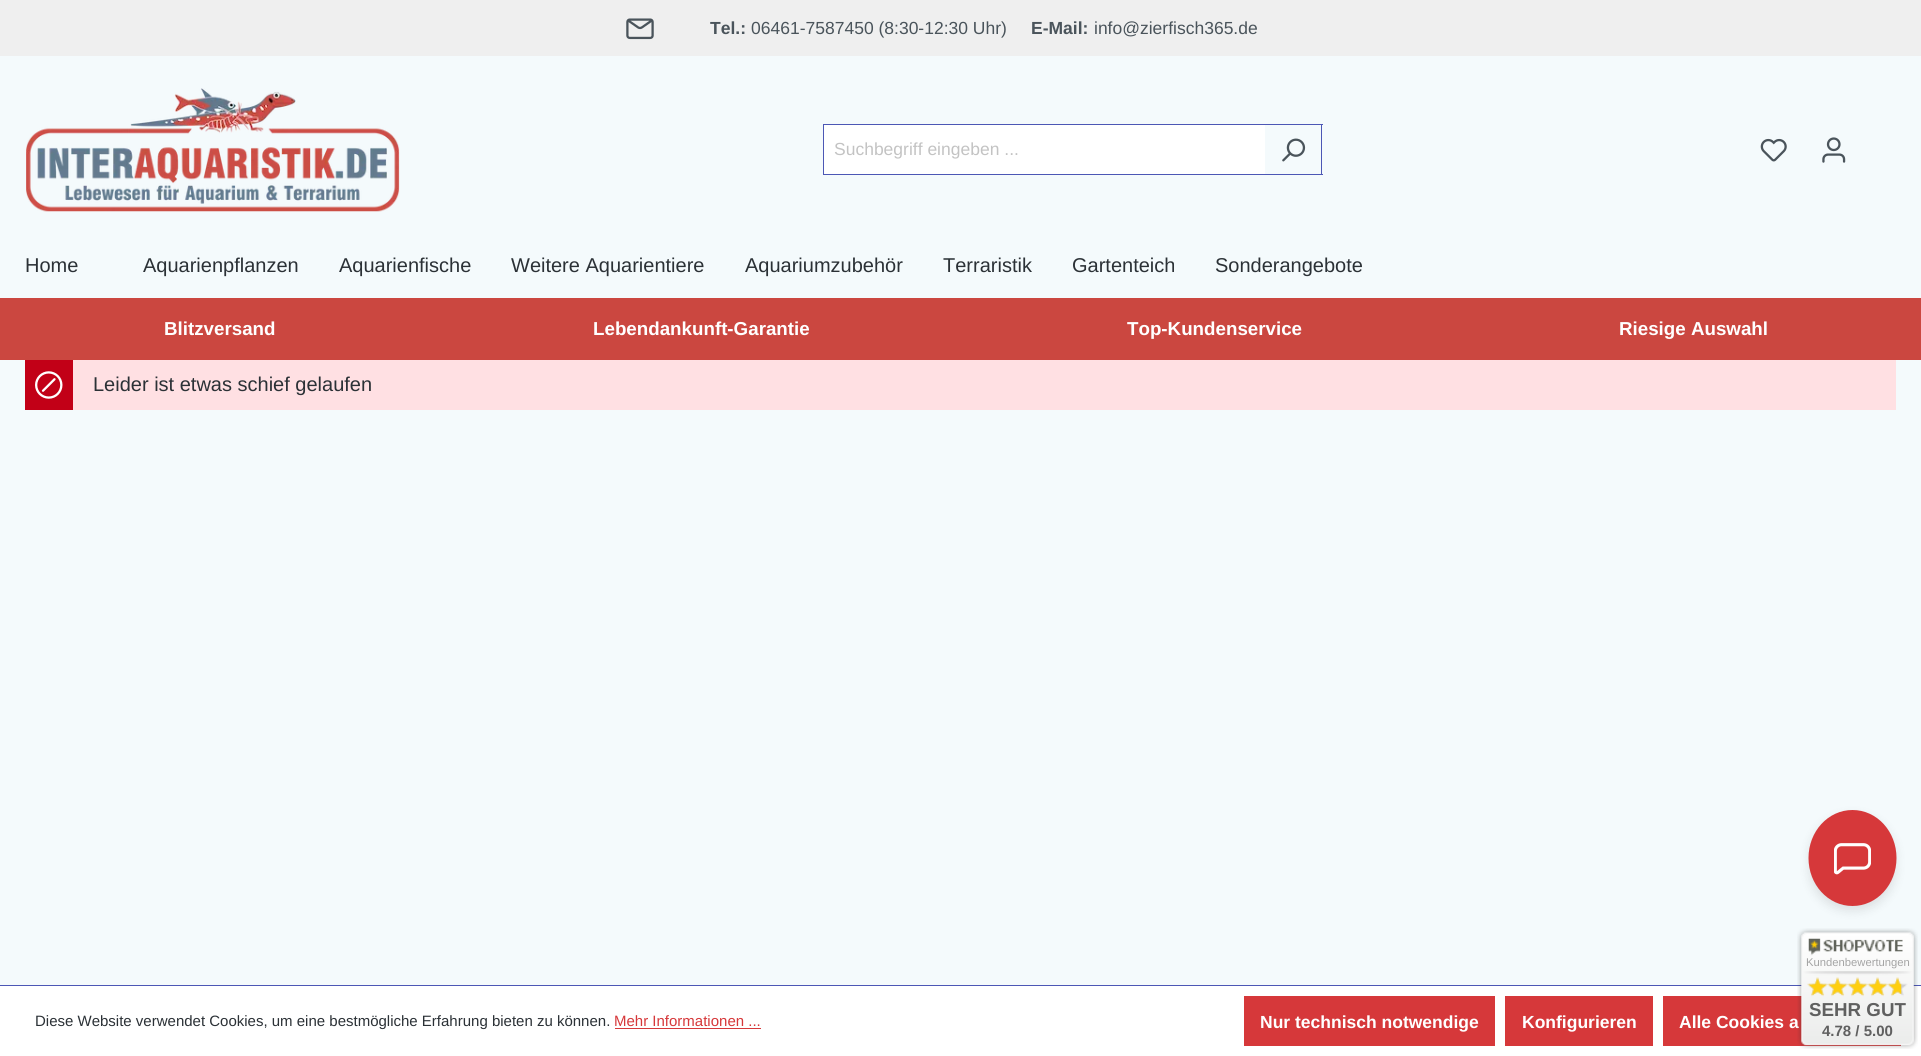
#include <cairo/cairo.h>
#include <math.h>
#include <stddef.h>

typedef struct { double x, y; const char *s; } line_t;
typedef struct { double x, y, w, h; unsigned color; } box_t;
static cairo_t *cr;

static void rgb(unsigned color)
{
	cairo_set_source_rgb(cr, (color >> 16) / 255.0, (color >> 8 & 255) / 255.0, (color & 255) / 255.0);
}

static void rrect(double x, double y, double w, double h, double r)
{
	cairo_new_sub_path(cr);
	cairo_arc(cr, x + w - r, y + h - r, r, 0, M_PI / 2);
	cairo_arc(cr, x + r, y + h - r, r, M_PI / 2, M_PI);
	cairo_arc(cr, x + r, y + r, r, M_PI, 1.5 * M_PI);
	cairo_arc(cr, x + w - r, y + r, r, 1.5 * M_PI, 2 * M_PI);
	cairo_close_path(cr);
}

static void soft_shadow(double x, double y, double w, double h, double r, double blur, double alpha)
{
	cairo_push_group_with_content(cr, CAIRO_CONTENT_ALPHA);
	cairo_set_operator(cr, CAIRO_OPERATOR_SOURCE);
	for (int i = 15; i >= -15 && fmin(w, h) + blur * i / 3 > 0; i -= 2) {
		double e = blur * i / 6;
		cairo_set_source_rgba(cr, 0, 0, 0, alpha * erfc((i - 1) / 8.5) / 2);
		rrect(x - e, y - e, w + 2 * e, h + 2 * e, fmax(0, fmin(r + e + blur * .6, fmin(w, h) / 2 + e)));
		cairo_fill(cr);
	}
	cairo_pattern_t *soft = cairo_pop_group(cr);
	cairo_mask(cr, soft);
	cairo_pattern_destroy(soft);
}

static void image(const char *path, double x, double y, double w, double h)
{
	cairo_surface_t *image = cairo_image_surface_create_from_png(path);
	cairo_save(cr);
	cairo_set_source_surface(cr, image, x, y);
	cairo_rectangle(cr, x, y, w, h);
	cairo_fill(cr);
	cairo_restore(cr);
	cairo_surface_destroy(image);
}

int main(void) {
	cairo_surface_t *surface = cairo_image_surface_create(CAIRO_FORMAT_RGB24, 1921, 1056);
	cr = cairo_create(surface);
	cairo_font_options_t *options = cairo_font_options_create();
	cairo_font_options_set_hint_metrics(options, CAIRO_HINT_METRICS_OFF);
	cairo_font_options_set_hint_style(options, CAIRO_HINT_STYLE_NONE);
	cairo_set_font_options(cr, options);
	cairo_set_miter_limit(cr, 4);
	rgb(0xf4fafc);
	cairo_paint(cr);
	rgb(0xefefef);
	cairo_rectangle(cr, 0, 0, 1921, 56);
	cairo_fill(cr);
	image("img/1.png", 626, 18, 28, 22);
	image("img/2.png", 26, 88, 374, 124);
	{
		static const box_t items[] = {
			{824, 125, 441, 49, 0xffffff},
			{823, 124, 500, 1, 0x4c57b5},
			{823, 174, 442, 1, 0x4c57b5},
			{823, 124, 1, 51, 0x4c57b5},
			{1321, 124, 1, 51, 0x4c57b5},
			{1264, 174, 59, 1, 0x4c57b5},
		};
		for (size_t i = 0; i < sizeof items / sizeof *items; i++) {
			rgb(items[i].color);
			cairo_rectangle(cr, items[i].x, items[i].y, items[i].w, items[i].h);
			cairo_fill(cr);
		}
	}
	image("img/3.png", 1282, 138, 24, 24);
	image("img/4.png", 1760, 138, 27, 24);
	image("img/5.png", 1822, 137, 24, 26);
	rgb(0xcb4740);
	cairo_rectangle(cr, 0, 298, 1921, 62);
	cairo_fill(cr);
	rgb(0xc20017);
	cairo_rectangle(cr, 25, 360, 48, 50);
	cairo_fill(cr);
	image("img/6.png", 35, 371, 28, 28);
	rgb(0xffe0e3);
	cairo_rectangle(cr, 73, 360, 1823, 50);
	cairo_fill(cr);
	rgb(0x000000);
	soft_shadow(1809, 815, 87, 96, 43.5, 5, 0.1);
	rgb(0xd6383a);
	cairo_new_path(cr);
	cairo_move_to(cr, 1852.5, 810);
	cairo_curve_to(cr, 1877, 810, 1896.5, 831.5, 1896.5, 858);
	cairo_curve_to(cr, 1896.5, 884.5, 1877, 906, 1852.5, 906);
	cairo_curve_to(cr, 1828, 906, 1808.5, 884.5, 1808.5, 858);
	cairo_curve_to(cr, 1808.5, 831.5, 1828, 810, 1852.5, 810);
	cairo_close_path(cr);
	cairo_fill(cr);
	image("img/7.png", 1834, 843, 37, 32);
	{
		static const box_t items[] = {
			{0, 986, 1921, 70, 0xffffff},
			{0, 985, 1921, 1, 0x4c57b5},
			{615, 1028, 146, 1, 0xd6383a},
			{1244, 996, 251, 50, 0xd6383a},
			{1505, 996, 148, 50, 0xd6383a},
			{1663, 996, 238, 50, 0xd6383a},
		};
		for (size_t i = 0; i < sizeof items / sizeof *items; i++) {
			rgb(items[i].color);
			cairo_rectangle(cr, items[i].x, items[i].y, items[i].w, items[i].h);
			cairo_fill(cr);
		}
	}
	cairo_select_font_face(cr, "Liberation Sans", CAIRO_FONT_SLANT_NORMAL, CAIRO_FONT_WEIGHT_BOLD);
	cairo_set_font_size(cr, 17.5);
	rgb(0x4a545b);
	cairo_move_to(cr, 710, 34);
	cairo_show_text(cr, "Tel.:");
	cairo_select_font_face(cr, "Liberation Sans", CAIRO_FONT_SLANT_NORMAL, CAIRO_FONT_WEIGHT_NORMAL);
	cairo_move_to(cr, 751, 34);
	cairo_show_text(cr, "06461-7587450 (8:30-12:30 Uhr)");
	cairo_select_font_face(cr, "Liberation Sans", CAIRO_FONT_SLANT_NORMAL, CAIRO_FONT_WEIGHT_BOLD);
	cairo_move_to(cr, 1031, 34);
	cairo_show_text(cr, "E-Mail:");
	cairo_select_font_face(cr, "Liberation Sans", CAIRO_FONT_SLANT_NORMAL, CAIRO_FONT_WEIGHT_NORMAL);
	cairo_move_to(cr, 1094, 34);
	cairo_show_text(cr, "info@zierfisch365.de");
	rgb(0xc3c3c3);
	cairo_move_to(cr, 834, 155);
	cairo_show_text(cr, "Suchbegriff eingeben ...");
	cairo_set_font_size(cr, 20);
	rgb(0x2b3136);
	{
		static const line_t items[] = {
			{25, 272, "Home"},
			{143, 272, "Aquarienpflanzen"},
			{339, 272, "Aquarienfische"},
			{511, 272, "Weitere Aquarientiere"},
			{745, 272, "Aquariumzubehör"},
			{943, 272, "Terraristik"},
			{1072, 272, "Gartenteich"},
			{1215, 272, "Sonderangebote"},
		};
		for (size_t i = 0; i < sizeof items / sizeof *items; i++) {
			cairo_move_to(cr, items[i].x, items[i].y);
			cairo_show_text(cr, items[i].s);
		}
	}
	cairo_select_font_face(cr, "Liberation Sans", CAIRO_FONT_SLANT_NORMAL, CAIRO_FONT_WEIGHT_BOLD);
	cairo_set_font_size(cr, 18.75);
	rgb(0xffffff);
	{
		static const line_t items[] = {
			{164, 335, "Blitzversand"},
			{593, 335, "Lebendankunft-Garantie"},
			{1127, 335, "Top-Kundenservice"},
			{1619, 335, "Riesige Auswahl"},
		};
		for (size_t i = 0; i < sizeof items / sizeof *items; i++) {
			cairo_move_to(cr, items[i].x, items[i].y);
			cairo_show_text(cr, items[i].s);
		}
	}
	cairo_select_font_face(cr, "Liberation Sans", CAIRO_FONT_SLANT_NORMAL, CAIRO_FONT_WEIGHT_NORMAL);
	cairo_set_font_size(cr, 20);
	rgb(0x2b3136);
	cairo_move_to(cr, 93, 391);
	cairo_show_text(cr, "Leider ist etwas schief gelaufen");
	cairo_set_font_size(cr, 15);
	cairo_move_to(cr, 35, 1026);
	cairo_show_text(cr, "Diese Website verwendet Cookies, um eine bestmögliche Erfahrung bieten zu können.");
	rgb(0xd6383a);
	cairo_move_to(cr, 614, 1026);
	cairo_show_text(cr, "Mehr Informationen ...");
	cairo_select_font_face(cr, "Liberation Sans", CAIRO_FONT_SLANT_NORMAL, CAIRO_FONT_WEIGHT_BOLD);
	cairo_set_font_size(cr, 17.5);
	rgb(0xffffff);
	{
		static const line_t items[] = {
			{1260, 1028, "Nur technisch notwendige"},
			{1522, 1028, "Konfigurieren"},
			{1679, 1028, "Alle Cookies a"},
		};
		for (size_t i = 0; i < sizeof items / sizeof *items; i++) {
			cairo_move_to(cr, items[i].x, items[i].y);
			cairo_show_text(cr, items[i].s);
		}
	}
	image("img/8.png", 1797, 928, 121, 121);
	cairo_select_font_face(cr, "Liberation Sans", CAIRO_FONT_SLANT_NORMAL, CAIRO_FONT_WEIGHT_NORMAL);
	cairo_set_font_size(cr, 11.25);
	rgb(0xa4a4a4);
	cairo_move_to(cr, 1806, 966);
	cairo_show_text(cr, "Kundenbewertungen");
	image("img/9.png", 1807, 977, 95, 19);
	cairo_select_font_face(cr, "Liberation Sans", CAIRO_FONT_SLANT_NORMAL, CAIRO_FONT_WEIGHT_BOLD);
	cairo_set_font_size(cr, 18.75);
	rgb(0x606060);
	cairo_move_to(cr, 1809, 1016);
	cairo_show_text(cr, "SEHR GUT");
	cairo_set_font_size(cr, 15);
	cairo_move_to(cr, 1822, 1036);
	cairo_show_text(cr, "4.78 / 5.00");
	cairo_surface_write_to_png(surface, "page.png");
	cairo_font_options_destroy(options);
	cairo_destroy(cr);
	cairo_surface_destroy(surface);
	return 0;
}
